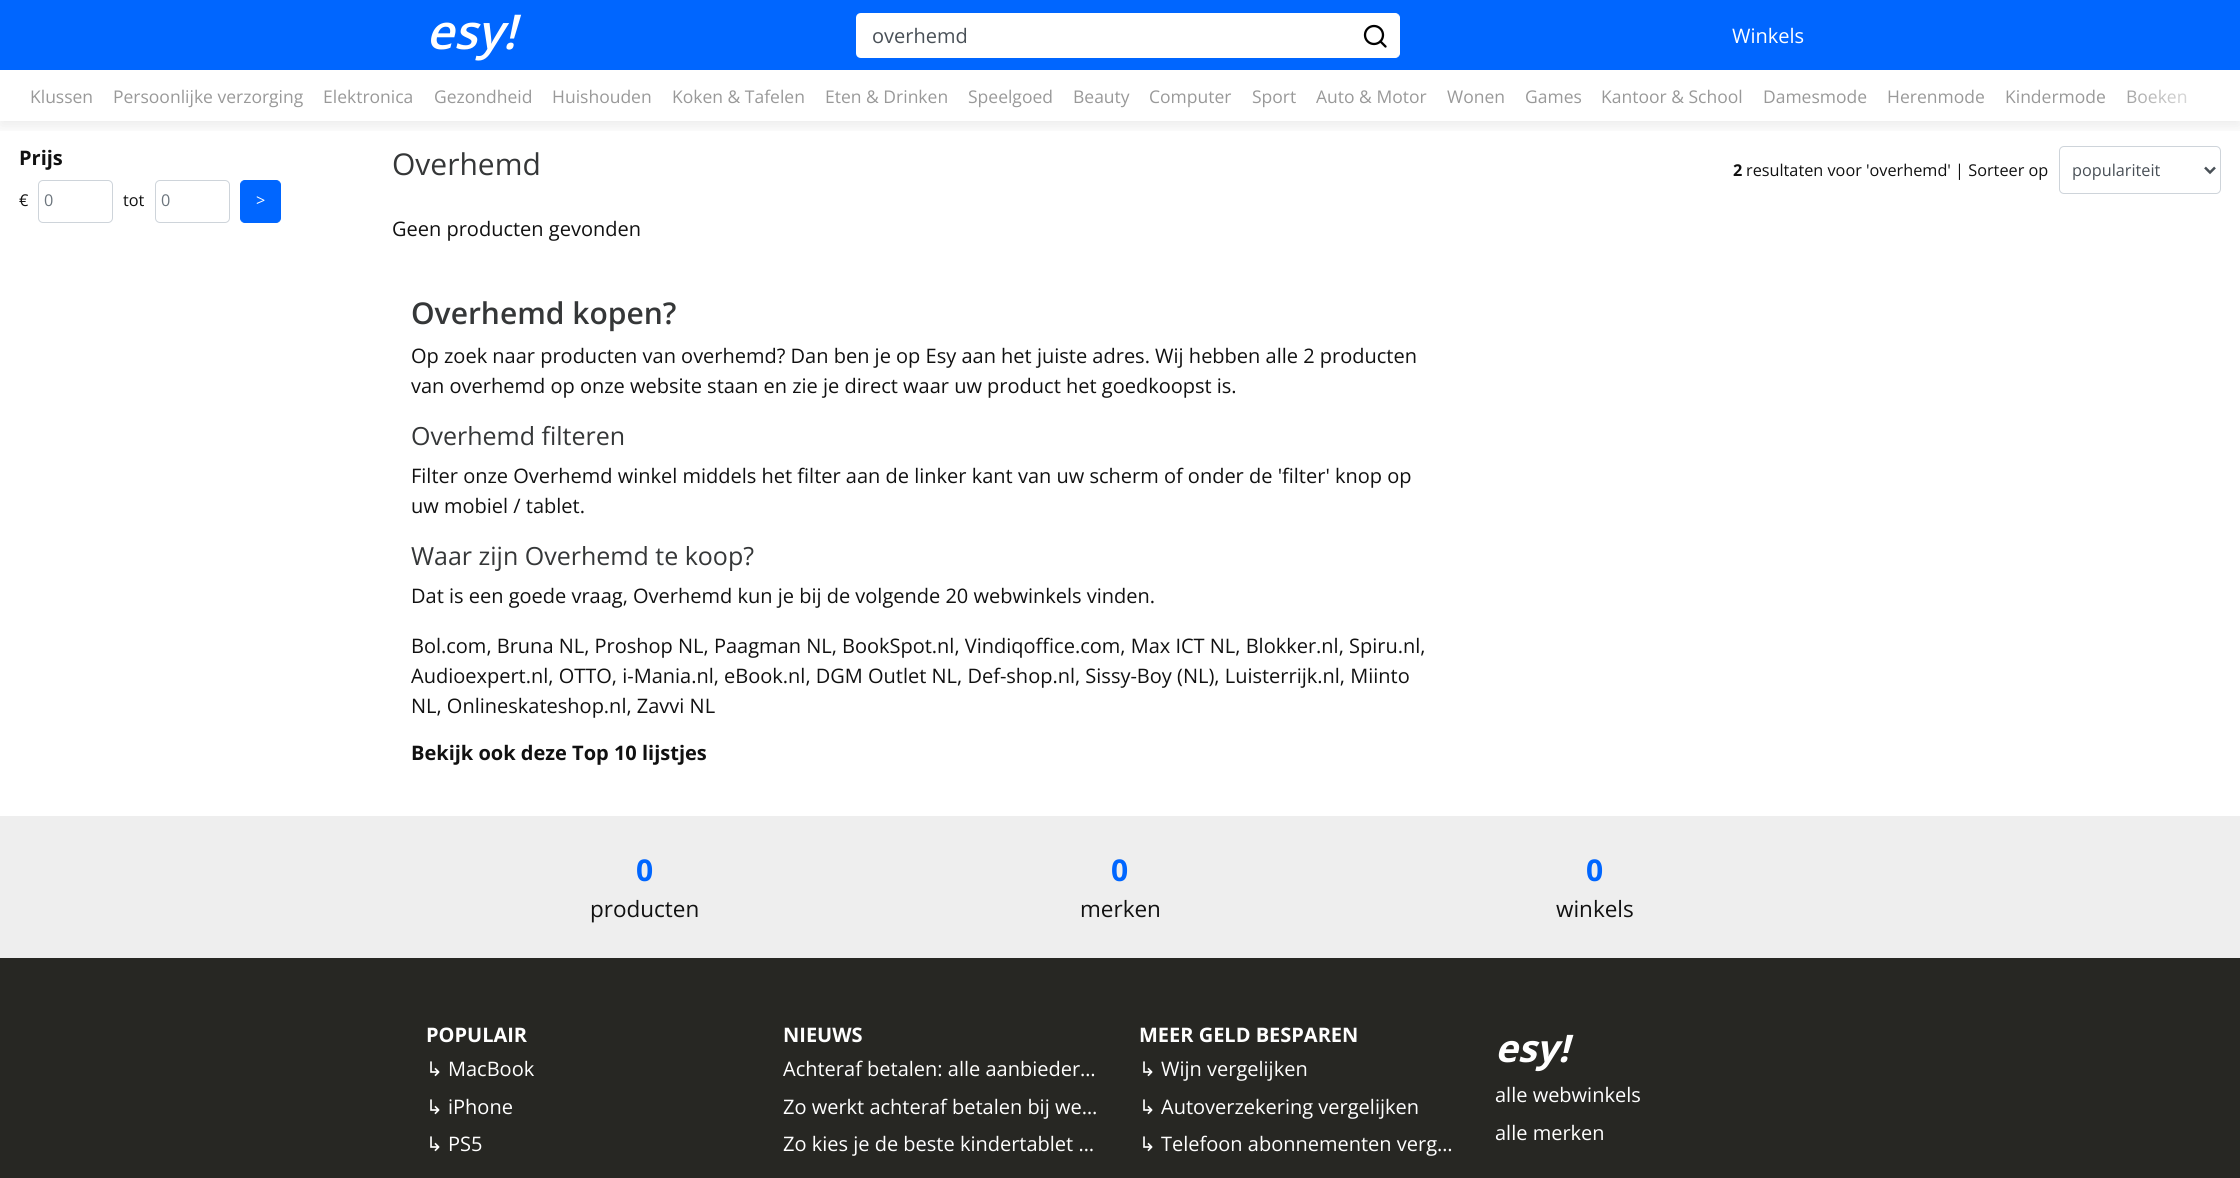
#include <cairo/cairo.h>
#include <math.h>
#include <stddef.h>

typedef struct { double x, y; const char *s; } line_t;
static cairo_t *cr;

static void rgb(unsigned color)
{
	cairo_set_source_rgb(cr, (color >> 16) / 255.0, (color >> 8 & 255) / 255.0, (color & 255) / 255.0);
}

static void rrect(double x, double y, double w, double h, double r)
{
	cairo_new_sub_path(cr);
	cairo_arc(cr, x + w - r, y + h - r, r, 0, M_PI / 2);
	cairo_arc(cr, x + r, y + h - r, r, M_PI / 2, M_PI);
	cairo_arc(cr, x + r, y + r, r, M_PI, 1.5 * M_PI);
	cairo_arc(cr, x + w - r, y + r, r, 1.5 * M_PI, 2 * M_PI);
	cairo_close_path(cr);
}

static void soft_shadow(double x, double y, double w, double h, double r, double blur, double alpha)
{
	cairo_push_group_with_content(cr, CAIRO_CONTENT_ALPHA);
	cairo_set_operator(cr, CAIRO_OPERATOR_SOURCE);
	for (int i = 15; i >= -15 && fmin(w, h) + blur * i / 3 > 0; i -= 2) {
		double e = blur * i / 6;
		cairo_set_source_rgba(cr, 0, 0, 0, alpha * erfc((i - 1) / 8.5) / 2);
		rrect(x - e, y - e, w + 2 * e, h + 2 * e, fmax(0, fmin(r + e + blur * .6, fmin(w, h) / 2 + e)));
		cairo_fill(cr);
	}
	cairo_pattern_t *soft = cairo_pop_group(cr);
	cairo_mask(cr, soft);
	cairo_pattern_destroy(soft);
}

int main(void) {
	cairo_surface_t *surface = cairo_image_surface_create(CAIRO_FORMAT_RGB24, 2240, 1178);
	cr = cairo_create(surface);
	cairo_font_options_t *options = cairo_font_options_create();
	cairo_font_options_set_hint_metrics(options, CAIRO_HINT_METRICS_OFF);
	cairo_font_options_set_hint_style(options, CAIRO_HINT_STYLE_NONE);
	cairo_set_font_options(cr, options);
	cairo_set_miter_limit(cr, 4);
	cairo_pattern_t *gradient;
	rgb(0xffffff);
	cairo_paint(cr);
	rgb(0x0066ff);
	cairo_rectangle(cr, 0, 0, 2240, 70);
	cairo_fill(cr);
	rgb(0xffffff);
	cairo_new_path(cr);
	cairo_move_to(cr, 861, 13);
	cairo_line_to(cr, 1356, 13);
	cairo_line_to(cr, 1356, 58);
	cairo_line_to(cr, 861, 58);
	cairo_curve_to(cr, 858, 58, 856, 56, 856, 53);
	cairo_line_to(cr, 856, 18);
	cairo_curve_to(cr, 856, 15, 858, 13, 861, 13);
	cairo_close_path(cr);
	cairo_fill(cr);
	cairo_save(cr);
	cairo_rectangle(cr, 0, 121, 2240, 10);
	cairo_clip(cr);
	rgb(0x000000);
	soft_shadow(0, 75, 2240, 51, 0, 7.5, 0.08);
	cairo_restore(cr);
	cairo_new_path(cr);
	cairo_move_to(cr, 1355.5, 13.5);
	cairo_line_to(cr, 1395, 13.5);
	cairo_curve_to(cr, 1397.5, 13.5, 1399.5, 15.5, 1399.5, 18);
	cairo_line_to(cr, 1399.5, 53);
	cairo_curve_to(cr, 1399.5, 55.5, 1397.5, 57.5, 1395, 57.5);
	cairo_line_to(cr, 1355.5, 57.5);
	cairo_close_path(cr);
	cairo_fill_preserve(cr);
	cairo_set_line_width(cr, 1);
	cairo_stroke(cr);
	cairo_arc(cr, 1374, 35, 9, 0, 2 * M_PI);
	rgb(0x000000);
	cairo_set_line_width(cr, 2.3);
	cairo_stroke(cr);
	cairo_new_path(cr);
	cairo_move_to(cr, 1385.5, 46.5);
	cairo_line_to(cr, 1380.5, 41.5);
	cairo_set_line_cap(cr, CAIRO_LINE_CAP_ROUND);
	cairo_set_line_join(cr, CAIRO_LINE_JOIN_ROUND);
	cairo_stroke(cr);
	rrect(38.5, 180.5, 74, 42, 4.5);
	rgb(0xced4da);
	cairo_set_line_width(cr, 1);
	cairo_set_line_cap(cr, CAIRO_LINE_CAP_BUTT);
	cairo_set_line_join(cr, CAIRO_LINE_JOIN_MITER);
	cairo_stroke(cr);
	rrect(155.5, 180.5, 74, 42, 4.5);
	cairo_stroke(cr);
	rgb(0x0066ff);
	rrect(240.5, 180.5, 40, 42, 4.5);
	cairo_fill_preserve(cr);
	cairo_stroke(cr);
	rrect(2059.5, 146.5, 161, 47, 4.5);
	rgb(0xced4da);
	cairo_stroke(cr);
	cairo_new_path(cr);
	cairo_move_to(cr, 2205, 167.5);
	cairo_line_to(cr, 2210, 172.5);
	cairo_line_to(cr, 2215, 167.5);
	rgb(0x495057);
	cairo_set_line_width(cr, 2.5);
	cairo_stroke(cr);
	rgb(0xeeeeee);
	cairo_rectangle(cr, 0, 816, 2240, 142);
	cairo_fill(cr);
	rgb(0x272723);
	cairo_rectangle(cr, 0, 958, 2240, 220);
	cairo_fill(cr);
	cairo_select_font_face(cr, "Open Sans SemiBold", CAIRO_FONT_SLANT_ITALIC, CAIRO_FONT_WEIGHT_NORMAL);
	cairo_set_font_size(cr, 48);
	rgb(0xffffff);
	cairo_move_to(cr, 426, 49);
	cairo_show_text(cr, "esy!");
	cairo_select_font_face(cr, "Open Sans", CAIRO_FONT_SLANT_NORMAL, CAIRO_FONT_WEIGHT_NORMAL);
	cairo_set_font_size(cr, 20);
	rgb(0x495057);
	cairo_move_to(cr, 872, 43);
	cairo_show_text(cr, "overhemd");
	rgb(0xffffff);
	cairo_move_to(cr, 1732, 43);
	cairo_show_text(cr, "Winkels");
	cairo_set_font_size(cr, 17.5);
	rgb(0x999999);
	{
		static const line_t items[] = {
			{30, 103, "Klussen"},
			{113, 103, "Persoonlijke verzorging"},
			{323, 103, "Elektronica"},
			{434, 103, "Gezondheid"},
			{552, 103, "Huishouden"},
			{672, 103, "Koken & Tafelen"},
			{825, 103, "Eten & Drinken"},
			{968, 103, "Speelgoed"},
			{1601, 103, "Kantoor & School"},
			{1763, 103, "Damesmode"},
			{1887, 103, "Herenmode"},
			{2005, 103, "Kindermode"},
			{2126, 103, "Boeken"},
			{1073, 103, "Beauty"},
			{1149, 103, "Computer"},
			{1252, 103, "Sport"},
			{1316, 103, "Auto & Motor"},
			{1447, 103, "Wonen"},
			{1525, 103, "Games"},
		};
		for (size_t i = 0; i < sizeof items / sizeof *items; i++) {
			cairo_move_to(cr, items[i].x, items[i].y);
			cairo_show_text(cr, items[i].s);
		}
	}
	gradient = cairo_pattern_create_linear(2115, 96, 2240, 96);
	cairo_pattern_add_color_stop_rgba(gradient, 0, 1, 1, 1, 0);
	cairo_pattern_add_color_stop_rgba(gradient, 0.95, 1, 1, 1, 1);
	cairo_pattern_add_color_stop_rgba(gradient, 1, 1, 1, 1, 1);
	cairo_set_source(cr, gradient);
	cairo_pattern_destroy(gradient);
	cairo_rectangle(cr, 2127, 89, 59, 15);
	cairo_fill(cr);
	cairo_select_font_face(cr, "Open Sans", CAIRO_FONT_SLANT_NORMAL, CAIRO_FONT_WEIGHT_BOLD);
	cairo_set_font_size(cr, 20);
	rgb(0x111111);
	cairo_move_to(cr, 19, 165);
	cairo_show_text(cr, "Prijs");
	cairo_select_font_face(cr, "Open Sans", CAIRO_FONT_SLANT_NORMAL, CAIRO_FONT_WEIGHT_NORMAL);
	cairo_set_font_size(cr, 16.25);
	cairo_move_to(cr, 19, 206);
	cairo_show_text(cr, "€");
	rgb(0x6c757d);
	cairo_move_to(cr, 44, 206);
	cairo_show_text(cr, "0");
	rgb(0x111111);
	cairo_move_to(cr, 123, 206);
	cairo_show_text(cr, "tot");
	rgb(0x6c757d);
	cairo_move_to(cr, 161, 206);
	cairo_show_text(cr, "0");
	rgb(0xffffff);
	cairo_move_to(cr, 256, 206);
	cairo_show_text(cr, ">");
	cairo_set_font_size(cr, 30);
	rgb(0x353738);
	cairo_move_to(cr, 392, 175);
	cairo_show_text(cr, "Overhemd");
	cairo_select_font_face(cr, "Open Sans", CAIRO_FONT_SLANT_NORMAL, CAIRO_FONT_WEIGHT_BOLD);
	cairo_set_font_size(cr, 16.25);
	rgb(0x111111);
	cairo_move_to(cr, 1733, 176);
	cairo_show_text(cr, "2");
	cairo_select_font_face(cr, "Open Sans", CAIRO_FONT_SLANT_NORMAL, CAIRO_FONT_WEIGHT_NORMAL);
	cairo_move_to(cr, 1746, 176);
	cairo_show_text(cr, "resultaten voor 'overhemd' | Sorteer op");
	rgb(0x495057);
	cairo_move_to(cr, 2072, 176);
	cairo_show_text(cr, "populariteit");
	cairo_set_font_size(cr, 20);
	rgb(0x111111);
	cairo_move_to(cr, 392, 236);
	cairo_show_text(cr, "Geen producten gevonden");
	cairo_select_font_face(cr, "Open Sans SemiBold", CAIRO_FONT_SLANT_NORMAL, CAIRO_FONT_WEIGHT_NORMAL);
	cairo_set_font_size(cr, 30);
	rgb(0x353738);
	cairo_move_to(cr, 411, 324);
	cairo_show_text(cr, "Overhemd kopen?");
	cairo_select_font_face(cr, "Open Sans", CAIRO_FONT_SLANT_NORMAL, CAIRO_FONT_WEIGHT_NORMAL);
	cairo_set_font_size(cr, 20);
	rgb(0x111111);
	cairo_move_to(cr, 411, 363);
	cairo_show_text(cr, "Op zoek naar producten van overhemd? Dan ben je op Esy aan het juiste adres. Wij hebben alle 2 producten");
	cairo_move_to(cr, 411, 393);
	cairo_show_text(cr, "van overhemd op onze website staan en zie je direct waar uw product het goedkoopst is.");
	cairo_set_font_size(cr, 25);
	rgb(0x353738);
	cairo_move_to(cr, 411, 445);
	cairo_show_text(cr, "Overhemd filteren");
	cairo_set_font_size(cr, 20);
	rgb(0x111111);
	cairo_move_to(cr, 411, 483);
	cairo_show_text(cr, "Filter onze Overhemd winkel middels het filter aan de linker kant van uw scherm of onder de 'filter' knop op");
	cairo_move_to(cr, 411, 513);
	cairo_show_text(cr, "uw mobiel / tablet.");
	cairo_set_font_size(cr, 25);
	rgb(0x353738);
	cairo_move_to(cr, 411, 565);
	cairo_show_text(cr, "Waar zijn Overhemd te koop?");
	cairo_set_font_size(cr, 20);
	rgb(0x111111);
	{
		static const line_t items[] = {
			{411, 603, "Dat is een goede vraag, Overhemd kun je bij de volgende 20 webwinkels vinden."},
			{411, 653, "Bol.com, Bruna NL, Proshop NL, Paagman NL, BookSpot.nl, Vindiqoffice.com, Max ICT NL, Blokker.nl, Spiru.nl,"},
			{411, 683, "Audioexpert.nl, OTTO, i-Mania.nl, eBook.nl, DGM Outlet NL, Def-shop.nl, Sissy-Boy (NL), Luisterrijk.nl, Miinto"},
			{411, 713, "NL, Onlineskateshop.nl, Zavvi NL"},
		};
		for (size_t i = 0; i < sizeof items / sizeof *items; i++) {
			cairo_move_to(cr, items[i].x, items[i].y);
			cairo_show_text(cr, items[i].s);
		}
	}
	cairo_select_font_face(cr, "Open Sans", CAIRO_FONT_SLANT_NORMAL, CAIRO_FONT_WEIGHT_BOLD);
	cairo_move_to(cr, 411, 760);
	cairo_show_text(cr, "Bekijk ook deze Top 10 lijstjes");
	cairo_set_font_size(cr, 30);
	rgb(0x0066ff);
	cairo_move_to(cr, 636, 881);
	cairo_show_text(cr, "0");
	cairo_select_font_face(cr, "Open Sans", CAIRO_FONT_SLANT_NORMAL, CAIRO_FONT_WEIGHT_NORMAL);
	cairo_set_font_size(cr, 22.5);
	rgb(0x111111);
	cairo_move_to(cr, 590, 917);
	cairo_show_text(cr, "producten");
	cairo_select_font_face(cr, "Open Sans", CAIRO_FONT_SLANT_NORMAL, CAIRO_FONT_WEIGHT_BOLD);
	cairo_set_font_size(cr, 30);
	rgb(0x0066ff);
	cairo_move_to(cr, 1111, 881);
	cairo_show_text(cr, "0");
	cairo_select_font_face(cr, "Open Sans", CAIRO_FONT_SLANT_NORMAL, CAIRO_FONT_WEIGHT_NORMAL);
	cairo_set_font_size(cr, 22.5);
	rgb(0x111111);
	cairo_move_to(cr, 1080, 917);
	cairo_show_text(cr, "merken");
	cairo_select_font_face(cr, "Open Sans", CAIRO_FONT_SLANT_NORMAL, CAIRO_FONT_WEIGHT_BOLD);
	cairo_set_font_size(cr, 30);
	rgb(0x0066ff);
	cairo_move_to(cr, 1586, 881);
	cairo_show_text(cr, "0");
	cairo_select_font_face(cr, "Open Sans", CAIRO_FONT_SLANT_NORMAL, CAIRO_FONT_WEIGHT_NORMAL);
	cairo_set_font_size(cr, 22.5);
	rgb(0x111111);
	cairo_move_to(cr, 1556, 917);
	cairo_show_text(cr, "winkels");
	cairo_select_font_face(cr, "Open Sans", CAIRO_FONT_SLANT_NORMAL, CAIRO_FONT_WEIGHT_BOLD);
	cairo_set_font_size(cr, 20);
	rgb(0xffffff);
	cairo_move_to(cr, 426, 1042);
	cairo_show_text(cr, "POPULAIR");
	cairo_select_font_face(cr, "DejaVu Sans", CAIRO_FONT_SLANT_NORMAL, CAIRO_FONT_WEIGHT_NORMAL);
	cairo_move_to(cr, 426, 1076);
	cairo_show_text(cr, "↳");
	cairo_select_font_face(cr, "Open Sans", CAIRO_FONT_SLANT_NORMAL, CAIRO_FONT_WEIGHT_NORMAL);
	cairo_move_to(cr, 448, 1076);
	cairo_show_text(cr, "MacBook");
	cairo_select_font_face(cr, "DejaVu Sans", CAIRO_FONT_SLANT_NORMAL, CAIRO_FONT_WEIGHT_NORMAL);
	cairo_move_to(cr, 426, 1114);
	cairo_show_text(cr, "↳");
	cairo_select_font_face(cr, "Open Sans", CAIRO_FONT_SLANT_NORMAL, CAIRO_FONT_WEIGHT_NORMAL);
	cairo_move_to(cr, 448, 1114);
	cairo_show_text(cr, "iPhone");
	cairo_select_font_face(cr, "DejaVu Sans", CAIRO_FONT_SLANT_NORMAL, CAIRO_FONT_WEIGHT_NORMAL);
	cairo_move_to(cr, 426, 1151);
	cairo_show_text(cr, "↳");
	cairo_select_font_face(cr, "Open Sans", CAIRO_FONT_SLANT_NORMAL, CAIRO_FONT_WEIGHT_NORMAL);
	cairo_move_to(cr, 448, 1151);
	cairo_show_text(cr, "PS5");
	cairo_select_font_face(cr, "Open Sans", CAIRO_FONT_SLANT_NORMAL, CAIRO_FONT_WEIGHT_BOLD);
	cairo_move_to(cr, 783, 1042);
	cairo_show_text(cr, "NIEUWS");
	cairo_select_font_face(cr, "Open Sans", CAIRO_FONT_SLANT_NORMAL, CAIRO_FONT_WEIGHT_NORMAL);
	{
		static const line_t items[] = {
			{783, 1076, "Achteraf betalen: alle aanbieder…"},
			{783, 1114, "Zo werkt achteraf betalen bij we…"},
			{783, 1151, "Zo kies je de beste kindertablet …"},
		};
		for (size_t i = 0; i < sizeof items / sizeof *items; i++) {
			cairo_move_to(cr, items[i].x, items[i].y);
			cairo_show_text(cr, items[i].s);
		}
	}
	cairo_select_font_face(cr, "Open Sans", CAIRO_FONT_SLANT_NORMAL, CAIRO_FONT_WEIGHT_BOLD);
	cairo_move_to(cr, 1139, 1042);
	cairo_show_text(cr, "MEER GELD BESPAREN");
	cairo_select_font_face(cr, "DejaVu Sans", CAIRO_FONT_SLANT_NORMAL, CAIRO_FONT_WEIGHT_NORMAL);
	cairo_move_to(cr, 1139, 1076);
	cairo_show_text(cr, "↳");
	cairo_select_font_face(cr, "Open Sans", CAIRO_FONT_SLANT_NORMAL, CAIRO_FONT_WEIGHT_NORMAL);
	cairo_move_to(cr, 1161, 1076);
	cairo_show_text(cr, "Wijn vergelijken");
	cairo_select_font_face(cr, "DejaVu Sans", CAIRO_FONT_SLANT_NORMAL, CAIRO_FONT_WEIGHT_NORMAL);
	cairo_move_to(cr, 1139, 1114);
	cairo_show_text(cr, "↳");
	cairo_select_font_face(cr, "Open Sans", CAIRO_FONT_SLANT_NORMAL, CAIRO_FONT_WEIGHT_NORMAL);
	cairo_move_to(cr, 1161, 1114);
	cairo_show_text(cr, "Autoverzekering vergelijken");
	cairo_select_font_face(cr, "DejaVu Sans", CAIRO_FONT_SLANT_NORMAL, CAIRO_FONT_WEIGHT_NORMAL);
	cairo_move_to(cr, 1139, 1151);
	cairo_show_text(cr, "↳");
	cairo_select_font_face(cr, "Open Sans", CAIRO_FONT_SLANT_NORMAL, CAIRO_FONT_WEIGHT_NORMAL);
	cairo_move_to(cr, 1161, 1151);
	cairo_show_text(cr, "Telefoon abonnementen verg…");
	cairo_select_font_face(cr, "Open Sans", CAIRO_FONT_SLANT_ITALIC, CAIRO_FONT_WEIGHT_BOLD);
	cairo_set_font_size(cr, 38);
	cairo_move_to(cr, 1495, 1062);
	cairo_show_text(cr, "esy!");
	cairo_select_font_face(cr, "Open Sans", CAIRO_FONT_SLANT_NORMAL, CAIRO_FONT_WEIGHT_NORMAL);
	cairo_set_font_size(cr, 20);
	cairo_move_to(cr, 1495, 1102);
	cairo_show_text(cr, "alle webwinkels");
	cairo_move_to(cr, 1495, 1140);
	cairo_show_text(cr, "alle merken");
	cairo_surface_write_to_png(surface, "page.png");
	cairo_font_options_destroy(options);
	cairo_destroy(cr);
	cairo_surface_destroy(surface);
	return 0;
}
